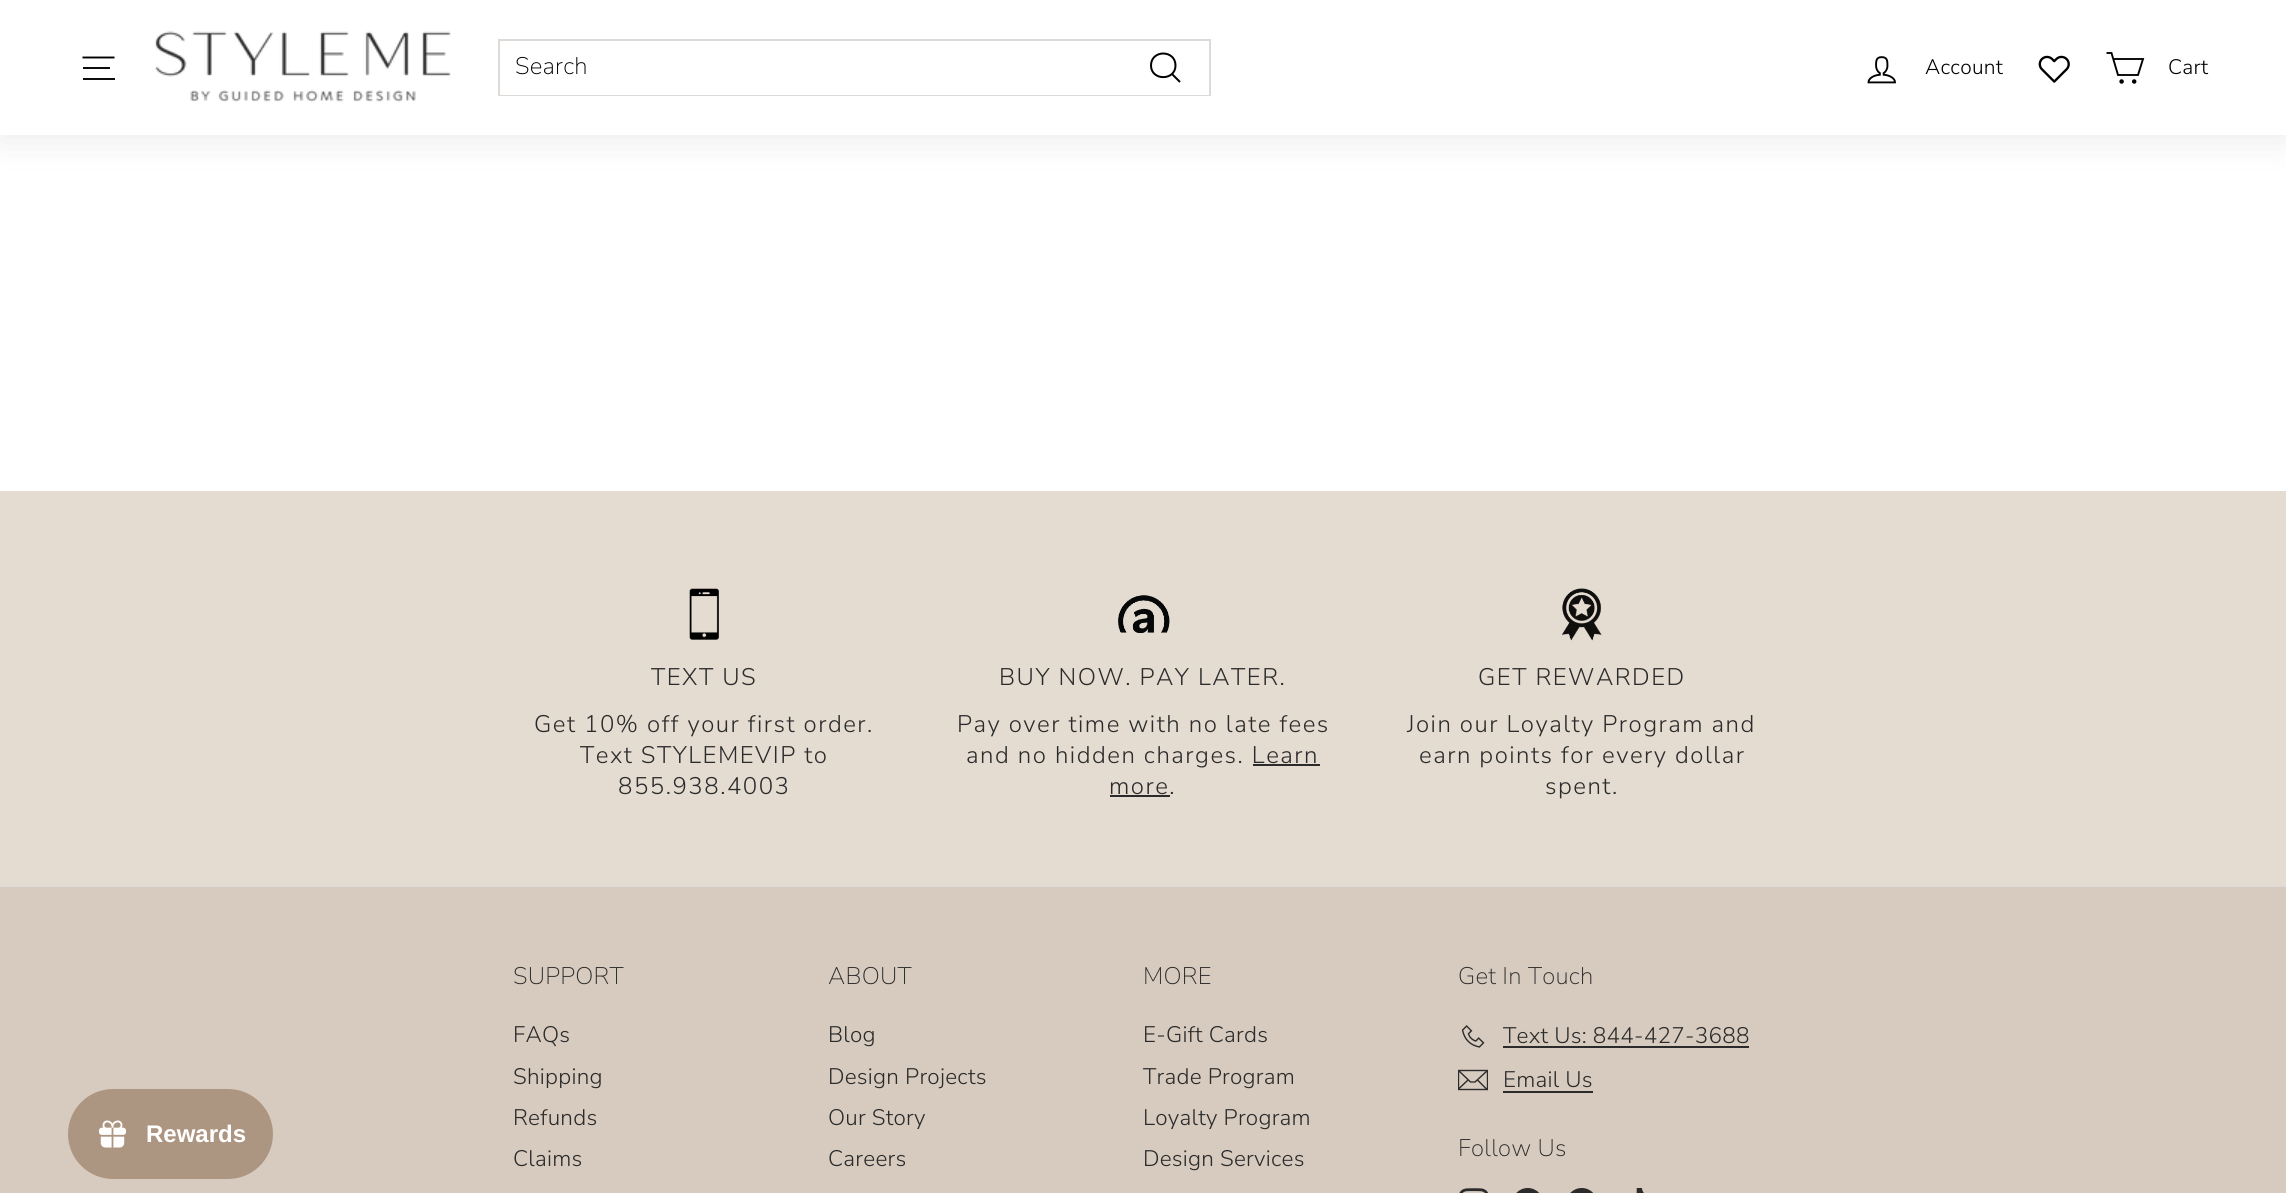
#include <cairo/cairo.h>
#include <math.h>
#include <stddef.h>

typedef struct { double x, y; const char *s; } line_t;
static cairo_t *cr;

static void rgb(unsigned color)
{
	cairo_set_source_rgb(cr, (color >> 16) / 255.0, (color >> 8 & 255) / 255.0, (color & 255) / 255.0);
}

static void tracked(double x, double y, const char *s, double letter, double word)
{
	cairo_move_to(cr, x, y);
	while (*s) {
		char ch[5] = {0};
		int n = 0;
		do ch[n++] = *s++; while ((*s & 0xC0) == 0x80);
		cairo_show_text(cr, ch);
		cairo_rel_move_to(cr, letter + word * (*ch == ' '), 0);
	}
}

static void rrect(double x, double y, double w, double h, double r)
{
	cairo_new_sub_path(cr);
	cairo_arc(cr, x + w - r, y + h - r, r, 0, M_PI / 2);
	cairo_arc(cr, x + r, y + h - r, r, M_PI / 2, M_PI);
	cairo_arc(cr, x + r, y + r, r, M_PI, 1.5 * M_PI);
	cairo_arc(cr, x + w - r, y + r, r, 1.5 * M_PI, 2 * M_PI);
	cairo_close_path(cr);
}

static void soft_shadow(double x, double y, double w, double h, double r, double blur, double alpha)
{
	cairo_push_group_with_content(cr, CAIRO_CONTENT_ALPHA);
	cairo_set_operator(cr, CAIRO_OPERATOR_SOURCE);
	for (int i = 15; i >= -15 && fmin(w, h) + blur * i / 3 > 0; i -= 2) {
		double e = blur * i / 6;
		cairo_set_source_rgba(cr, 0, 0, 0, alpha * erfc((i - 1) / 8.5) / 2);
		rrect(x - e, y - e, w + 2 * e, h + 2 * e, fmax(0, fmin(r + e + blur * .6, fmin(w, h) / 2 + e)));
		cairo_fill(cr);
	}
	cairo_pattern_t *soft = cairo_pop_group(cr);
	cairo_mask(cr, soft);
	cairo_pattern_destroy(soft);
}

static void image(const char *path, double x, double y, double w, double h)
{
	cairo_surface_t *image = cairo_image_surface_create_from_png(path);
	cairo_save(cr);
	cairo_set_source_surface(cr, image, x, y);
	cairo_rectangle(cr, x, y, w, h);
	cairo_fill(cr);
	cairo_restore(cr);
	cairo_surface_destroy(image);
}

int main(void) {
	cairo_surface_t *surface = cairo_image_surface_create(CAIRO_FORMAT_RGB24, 2286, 1193);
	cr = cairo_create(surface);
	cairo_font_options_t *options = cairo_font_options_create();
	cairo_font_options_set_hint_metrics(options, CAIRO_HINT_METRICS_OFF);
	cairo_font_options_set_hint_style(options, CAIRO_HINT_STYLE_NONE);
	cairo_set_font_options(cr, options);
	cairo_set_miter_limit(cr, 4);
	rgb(0xffffff);
	cairo_paint(cr);
	rgb(0xd7cbbf);
	cairo_rectangle(cr, 0, 887, 2286, 306);
	cairo_fill(cr);
	rgb(0xad9681);
	rrect(68, 1089, 205, 90, 45);
	cairo_fill(cr);
	image("img/1.png", 99, 1120, 27, 28);
	rgb(0x000000);
	soft_shadow(0, 0, 2286, 135, 0, 19, 0.1);
	rgb(0xffffff);
	cairo_rectangle(cr, 0, 0, 2286, 135);
	cairo_fill(cr);
	cairo_new_path(cr);
	cairo_move_to(cr, 82.5, 57.5);
	cairo_line_to(cr, 114.5, 57.5);
	rgb(0x000000);
	cairo_set_line_width(cr, 1.9);
	cairo_stroke(cr);
	rgb(0x0d0d0d);
	cairo_rectangle(cr, 83, 67, 27, 2);
	cairo_fill(cr);
	cairo_rectangle(cr, 83, 78, 32, 2);
	cairo_fill(cr);
	image("img/2.png", 155, 31, 296, 71);
	cairo_rectangle(cr, 499, 40, 711, 55);
	rgb(0xdedad7);
	cairo_set_line_width(cr, 2);
	cairo_stroke(cr);
	rgb(0xffffff);
	cairo_rectangle(cr, 500, 94, 709, 1);
	cairo_fill(cr);
	cairo_new_path(cr);
	cairo_move_to(cr, 1175.5, 65.5);
	cairo_curve_to(cr, 1175.5, 81, 1151, 81, 1151, 65.5);
	cairo_curve_to(cr, 1151, 49.5, 1175.5, 49.5, 1175.5, 65.5);
	cairo_close_path(cr);
	cairo_move_to(cr, 1180, 82);
	cairo_line_to(cr, 1172, 74);
	rgb(0x000000);
	cairo_stroke(cr);
	image("img/3.png", 1867, 56, 29, 28);
	image("img/4.png", 2038, 55, 32, 28);
	cairo_new_path(cr);
	cairo_move_to(cr, 2113.5, 59);
	cairo_line_to(cr, 2143, 59);
	cairo_line_to(cr, 2138, 75);
	cairo_line_to(cr, 2118, 75);
	cairo_line_to(cr, 2111.5, 53);
	cairo_line_to(cr, 2106.5, 53);
	cairo_set_line_width(cr, 1.9);
	cairo_stroke(cr);
	cairo_arc(cr, 2121.6, 81.5, 1.3, 0, 2 * M_PI);
	cairo_fill_preserve(cr);
	cairo_stroke(cr);
	cairo_arc(cr, 2134.2, 81.5, 1.3, 0, 2 * M_PI);
	cairo_fill_preserve(cr);
	cairo_stroke(cr);
	rgb(0xe4dbd1);
	cairo_rectangle(cr, 0, 491, 2286, 394);
	cairo_fill(cr);
	image("img/5.png", 689, 588, 30, 52);
	image("img/6.png", 1118, 595, 52, 38);
	rgb(0x2b2b2b);
	cairo_rectangle(cr, 1253, 764, 67, 2);
	cairo_fill(cr);
	cairo_rectangle(cr, 1110, 795, 60, 2);
	cairo_fill(cr);
	image("img/7.png", 1562, 588, 40, 53);
	rgb(0xdedad7);
	cairo_rectangle(cr, 0, 885, 2286, 2);
	cairo_fill(cr);
	image("img/8.png", 1461, 1025, 24, 23);
	rgb(0x2b2b2b);
	cairo_rectangle(cr, 1503, 1046, 246, 2);
	cairo_fill(cr);
	cairo_save(cr);
	cairo_rectangle(cr, 1458, 1065, 30, 30);
	cairo_clip(cr);
	cairo_new_path(cr);
	cairo_move_to(cr, 1487.5, 1089.5);
	cairo_line_to(cr, 1458.5, 1089.5);
	cairo_line_to(cr, 1458.5, 1070.5);
	cairo_line_to(cr, 1487.5, 1070.5);
	cairo_close_path(cr);
	cairo_move_to(cr, 1458.5, 1070.5);
	cairo_line_to(cr, 1470.5, 1082);
	cairo_line_to(cr, 1475, 1082);
	cairo_line_to(cr, 1487.5, 1070.5);
	cairo_move_to(cr, 1468, 1080);
	cairo_line_to(cr, 1458.5, 1089);
	cairo_move_to(cr, 1487, 1089.5);
	cairo_line_to(cr, 1477.5, 1080);
	cairo_set_line_width(cr, 1.4);
	cairo_stroke(cr);
	cairo_restore(cr);
	cairo_rectangle(cr, 1503, 1091, 90, 2);
	cairo_fill(cr);
	image("img/9.png", 1459, 1188, 30, 5);
	image("img/10.png", 1516, 1188, 24, 5);
	image("img/11.png", 1570, 1188, 24, 5);
	image("img/12.png", 1636, 1188, 8, 5);
	cairo_select_font_face(cr, "Liberation Sans", CAIRO_FONT_SLANT_NORMAL, CAIRO_FONT_WEIGHT_BOLD);
	cairo_set_font_size(cr, 24);
	rgb(0xffffff);
	cairo_move_to(cr, 146, 1142);
	cairo_show_text(cr, "Rewards");
	cairo_select_font_face(cr, "Nunito Sans ExtraLight", CAIRO_FONT_SLANT_NORMAL, CAIRO_FONT_WEIGHT_NORMAL);
	rgb(0x000000);
	tracked(515, 74, "Search", 0.25, 0);
	cairo_select_font_face(cr, "Nunito Sans Light", CAIRO_FONT_SLANT_NORMAL, CAIRO_FONT_WEIGHT_NORMAL);
	cairo_set_font_size(cr, 21);
	tracked(1925, 74, "Account", 0.25, 0);
	tracked(2168, 74, "Cart", 0.25, 0);
	cairo_set_font_size(cr, 24);
	rgb(0x2b2b2b);
	{
		static const line_t items[] = {
			{651, 685, "TEXT US"},
			{534, 732, "Get 10% off your first order."},
			{580, 763, "Text STYLEMEVIP to"},
			{618, 794, "855.938.4003"},
			{999, 685, "BUY NOW. PAY LATER."},
			{957, 732, "Pay over time with no late fees"},
			{966, 763, "and no hidden charges. Learn"},
			{1109, 794, "more."},
			{1478, 685, "GET REWARDED"},
			{1407, 732, "Join our Loyalty Program and"},
			{1419, 763, "earn points for every dollar"},
			{1545, 794, "spent."},
		};
		for (size_t i = 0; i < sizeof items / sizeof *items; i++) {
			tracked(items[i].x, items[i].y, items[i].s, 1.5, 0);
		}
	}
	cairo_select_font_face(cr, "Nunito Sans ExtraLight", CAIRO_FONT_SLANT_NORMAL, CAIRO_FONT_WEIGHT_NORMAL);
	tracked(513, 984, "SUPPORT", 0.25, 0);
	cairo_select_font_face(cr, "Nunito Sans Light", CAIRO_FONT_SLANT_NORMAL, CAIRO_FONT_WEIGHT_NORMAL);
	cairo_set_font_size(cr, 22.5);
	{
		static const line_t items[] = {
			{513, 1042, "FAQs"},
			{513, 1084, "Shipping"},
			{513, 1125, "Refunds"},
			{513, 1166, "Claims"},
		};
		for (size_t i = 0; i < sizeof items / sizeof *items; i++) {
			tracked(items[i].x, items[i].y, items[i].s, 0.25, 0);
		}
	}
	cairo_select_font_face(cr, "Nunito Sans ExtraLight", CAIRO_FONT_SLANT_NORMAL, CAIRO_FONT_WEIGHT_NORMAL);
	cairo_set_font_size(cr, 24);
	tracked(828, 984, "ABOUT", 0.25, 0);
	cairo_select_font_face(cr, "Nunito Sans Light", CAIRO_FONT_SLANT_NORMAL, CAIRO_FONT_WEIGHT_NORMAL);
	cairo_set_font_size(cr, 22.5);
	{
		static const line_t items[] = {
			{828, 1042, "Blog"},
			{828, 1084, "Design Projects"},
			{828, 1125, "Our Story"},
			{828, 1166, "Careers"},
		};
		for (size_t i = 0; i < sizeof items / sizeof *items; i++) {
			tracked(items[i].x, items[i].y, items[i].s, 0.25, 0);
		}
	}
	cairo_select_font_face(cr, "Nunito Sans ExtraLight", CAIRO_FONT_SLANT_NORMAL, CAIRO_FONT_WEIGHT_NORMAL);
	cairo_set_font_size(cr, 24);
	tracked(1143, 984, "MORE", 0.25, 0);
	cairo_select_font_face(cr, "Nunito Sans Light", CAIRO_FONT_SLANT_NORMAL, CAIRO_FONT_WEIGHT_NORMAL);
	cairo_set_font_size(cr, 22.5);
	{
		static const line_t items[] = {
			{1143, 1042, "E-Gift Cards"},
			{1143, 1084, "Trade Program"},
			{1143, 1125, "Loyalty Program"},
			{1143, 1166, "Design Services"},
		};
		for (size_t i = 0; i < sizeof items / sizeof *items; i++) {
			tracked(items[i].x, items[i].y, items[i].s, 0.25, 0);
		}
	}
	cairo_select_font_face(cr, "Nunito Sans ExtraLight", CAIRO_FONT_SLANT_NORMAL, CAIRO_FONT_WEIGHT_NORMAL);
	cairo_set_font_size(cr, 24);
	tracked(1458, 984, "Get In Touch", 0.25, 0);
	cairo_select_font_face(cr, "Nunito Sans Light", CAIRO_FONT_SLANT_NORMAL, CAIRO_FONT_WEIGHT_NORMAL);
	cairo_set_font_size(cr, 22.5);
	tracked(1503, 1043, "Text Us: 844-427-3688", 0.25, 0);
	tracked(1503, 1087, "Email Us", 0.25, 0);
	cairo_select_font_face(cr, "Nunito Sans ExtraLight", CAIRO_FONT_SLANT_NORMAL, CAIRO_FONT_WEIGHT_NORMAL);
	cairo_set_font_size(cr, 24);
	tracked(1458, 1156, "Follow Us", 0.25, 0);
	cairo_surface_write_to_png(surface, "page.png");
	cairo_font_options_destroy(options);
	cairo_destroy(cr);
	cairo_surface_destroy(surface);
	return 0;
}
